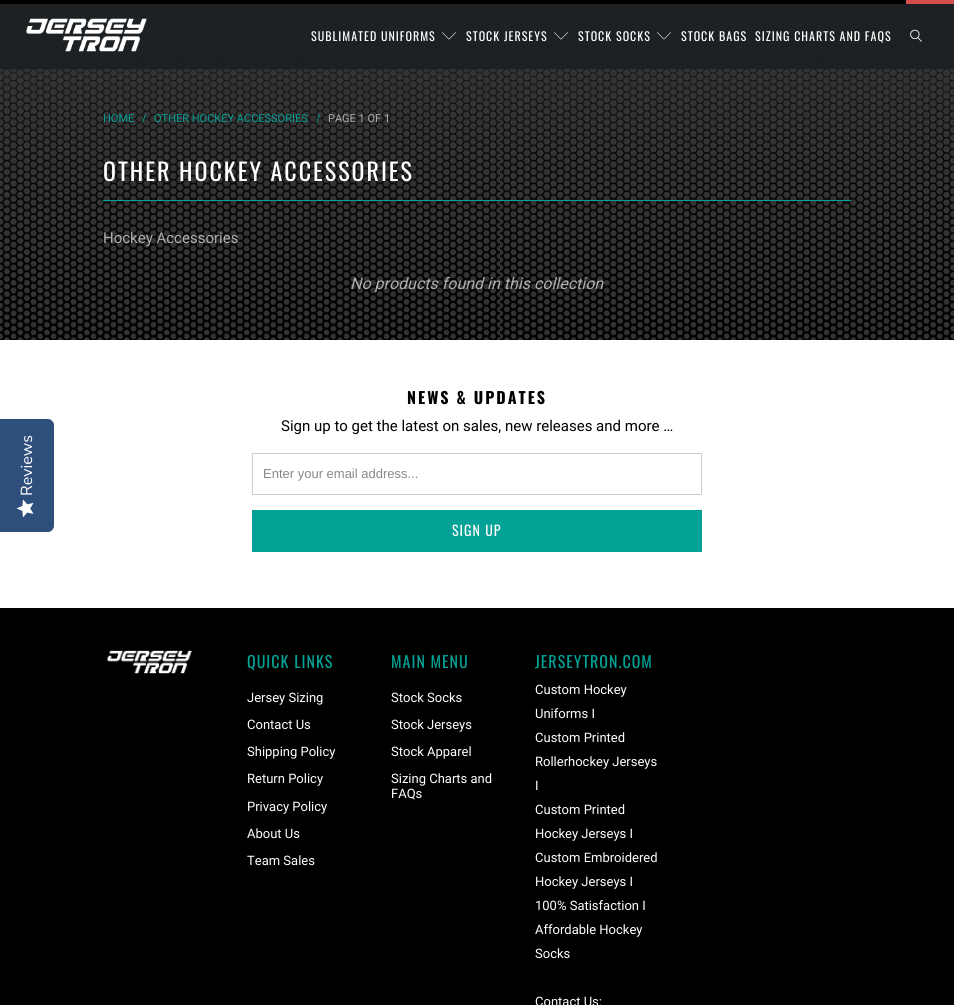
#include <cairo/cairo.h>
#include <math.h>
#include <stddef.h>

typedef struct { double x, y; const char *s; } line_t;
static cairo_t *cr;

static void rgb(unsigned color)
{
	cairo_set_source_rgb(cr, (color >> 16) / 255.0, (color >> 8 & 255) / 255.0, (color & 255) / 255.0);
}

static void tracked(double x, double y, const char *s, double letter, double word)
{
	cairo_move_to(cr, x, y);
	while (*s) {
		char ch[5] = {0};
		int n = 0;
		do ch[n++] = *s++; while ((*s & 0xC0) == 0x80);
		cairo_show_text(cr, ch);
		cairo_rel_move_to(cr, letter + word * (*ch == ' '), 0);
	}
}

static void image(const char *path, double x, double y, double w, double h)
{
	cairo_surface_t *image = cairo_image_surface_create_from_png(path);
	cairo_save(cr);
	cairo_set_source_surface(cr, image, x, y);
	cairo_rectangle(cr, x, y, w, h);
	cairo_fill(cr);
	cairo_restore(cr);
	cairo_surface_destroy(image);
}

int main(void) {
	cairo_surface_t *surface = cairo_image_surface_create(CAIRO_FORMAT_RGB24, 954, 1005);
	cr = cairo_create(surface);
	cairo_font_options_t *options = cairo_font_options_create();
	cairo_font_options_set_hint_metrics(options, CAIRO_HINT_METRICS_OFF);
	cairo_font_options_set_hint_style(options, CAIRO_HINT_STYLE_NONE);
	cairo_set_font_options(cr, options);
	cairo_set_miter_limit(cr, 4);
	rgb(0x000000);
	cairo_paint(cr);
	image("img/1.png", 0, 4, 954, 336);
	rgb(0xd54d4d);
	cairo_rectangle(cr, 906, 0, 48, 4);
	cairo_fill(cr);
	cairo_set_source_rgba(cr, 0.106, 0.122, 0.137, 0.9);
	cairo_rectangle(cr, 0, 4, 954, 65);
	cairo_fill(cr);
	image("img/2.png", 26, 18, 121, 34);
	image("img/3.png", 442, 32, 14, 8);
	image("img/4.png", 554, 32, 14, 8);
	image("img/5.png", 657, 32, 14, 8);
	image("img/6.png", 910, 29, 12, 13);
	rgb(0x03a196);
	cairo_rectangle(cr, 103, 200, 748, 1);
	cairo_fill(cr);
	rgb(0xffffff);
	cairo_rectangle(cr, 0, 340, 954, 268);
	cairo_fill(cr);
	rgb(0x2e4f7c);
	cairo_new_path(cr);
	cairo_move_to(cr, 0, 532);
	cairo_line_to(cr, 0, 419);
	cairo_line_to(cr, 48, 419);
	cairo_curve_to(cr, 51, 419, 54, 422, 54, 425);
	cairo_line_to(cr, 54, 526);
	cairo_curve_to(cr, 54, 529, 51, 532, 48, 532);
	cairo_close_path(cr);
	cairo_fill(cr);
	image("img/7.png", 16, 499, 18, 19);
	cairo_rectangle(cr, 252.5, 453.5, 449, 41);
	rgb(0xcccccc);
	cairo_set_line_width(cr, 1);
	cairo_stroke(cr);
	rgb(0x03a196);
	cairo_rectangle(cr, 252, 510, 450, 42);
	cairo_fill(cr);
	image("img/8.png", 106, 650, 87, 24);
	cairo_select_font_face(cr, "Oswald", CAIRO_FONT_SLANT_NORMAL, CAIRO_FONT_WEIGHT_NORMAL);
	cairo_set_font_size(cr, 12);
	rgb(0xffffff);
	{
		static const line_t items[] = {
			{311, 41, "SUBLIMATED UNIFORMS"},
			{466, 41, "STOCK JERSEYS"},
			{578, 41, "STOCK SOCKS"},
			{681, 41, "STOCK BAGS"},
			{755, 41, "SIZING CHARTS AND FAQS"},
		};
		for (size_t i = 0; i < sizeof items / sizeof *items; i++) {
			tracked(items[i].x, items[i].y, items[i].s, 1, 0);
		}
	}
	cairo_select_font_face(cr, "Roboto", CAIRO_FONT_SLANT_NORMAL, CAIRO_FONT_WEIGHT_NORMAL);
	cairo_set_font_size(cr, 11);
	rgb(0x03a196);
	{
		static const line_t items[] = {
			{103, 122, "HOME"},
			{142, 122, "/"},
			{154, 122, "OTHER HOCKEY ACCESSORIES"},
			{316, 122, "/"},
		};
		for (size_t i = 0; i < sizeof items / sizeof *items; i++) {
			cairo_move_to(cr, items[i].x, items[i].y);
			cairo_show_text(cr, items[i].s);
		}
	}
	rgb(0xaeaeae);
	cairo_move_to(cr, 328, 122);
	cairo_show_text(cr, "PAGE 1 OF 1");
	cairo_select_font_face(cr, "Oswald", CAIRO_FONT_SLANT_NORMAL, CAIRO_FONT_WEIGHT_NORMAL);
	cairo_set_font_size(cr, 24);
	rgb(0xffffff);
	tracked(103, 181, "OTHER HOCKEY ACCESSORIES", 2, 0);
	cairo_select_font_face(cr, "Roboto", CAIRO_FONT_SLANT_NORMAL, CAIRO_FONT_WEIGHT_NORMAL);
	cairo_set_font_size(cr, 15);
	rgb(0xaeaeae);
	cairo_move_to(cr, 103, 243);
	cairo_show_text(cr, "Hockey Accessories");
	cairo_select_font_face(cr, "Roboto", CAIRO_FONT_SLANT_ITALIC, CAIRO_FONT_WEIGHT_NORMAL);
	cairo_set_font_size(cr, 16);
	cairo_move_to(cr, 350, 289);
	cairo_show_text(cr, "No products found in this collection");
	cairo_select_font_face(cr, "Nunito Sans", CAIRO_FONT_SLANT_NORMAL, CAIRO_FONT_WEIGHT_NORMAL);
	rgb(0xffffff);
	cairo_save(cr);
	cairo_translate(cr, 32, 496);
	cairo_rotate(cr, -90 * M_PI / 180);
	cairo_move_to(cr, 0, 0);
	cairo_show_text(cr, "Reviews");
	cairo_restore(cr);
	cairo_select_font_face(cr, "Oswald", CAIRO_FONT_SLANT_NORMAL, CAIRO_FONT_WEIGHT_BOLD);
	rgb(0x000000);
	tracked(407, 404, "NEWS & UPDATES", 2, 0);
	cairo_select_font_face(cr, "Roboto", CAIRO_FONT_SLANT_NORMAL, CAIRO_FONT_WEIGHT_NORMAL);
	cairo_set_font_size(cr, 15);
	cairo_move_to(cr, 281, 431);
	cairo_show_text(cr, "Sign up to get the latest on sales, new releases and more …");
	cairo_select_font_face(cr, "Liberation Sans", CAIRO_FONT_SLANT_NORMAL, CAIRO_FONT_WEIGHT_NORMAL);
	cairo_set_font_size(cr, 13);
	rgb(0x888888);
	cairo_move_to(cr, 263, 478);
	cairo_show_text(cr, "Enter your email address...");
	cairo_select_font_face(cr, "Oswald", CAIRO_FONT_SLANT_NORMAL, CAIRO_FONT_WEIGHT_NORMAL);
	cairo_set_font_size(cr, 14);
	rgb(0xffffff);
	tracked(452, 536, "SIGN UP", 1, 0);
	cairo_set_font_size(cr, 16);
	rgb(0x03a196);
	tracked(247, 668, "QUICK LINKS", 1, 0);
	cairo_select_font_face(cr, "Roboto", CAIRO_FONT_SLANT_NORMAL, CAIRO_FONT_WEIGHT_NORMAL);
	cairo_set_font_size(cr, 13);
	rgb(0xffffff);
	{
		static const line_t items[] = {
			{247, 702, "Jersey Sizing"},
			{247, 729, "Contact Us"},
			{247, 756, "Shipping Policy"},
			{247, 783, "Return Policy"},
			{247, 811, "Privacy Policy"},
			{247, 838, "About Us"},
			{247, 865, "Team Sales"},
		};
		for (size_t i = 0; i < sizeof items / sizeof *items; i++) {
			cairo_move_to(cr, items[i].x, items[i].y);
			cairo_show_text(cr, items[i].s);
		}
	}
	cairo_select_font_face(cr, "Oswald", CAIRO_FONT_SLANT_NORMAL, CAIRO_FONT_WEIGHT_NORMAL);
	cairo_set_font_size(cr, 16);
	rgb(0x03a196);
	tracked(391, 668, "MAIN MENU", 1, 0);
	cairo_select_font_face(cr, "Roboto", CAIRO_FONT_SLANT_NORMAL, CAIRO_FONT_WEIGHT_NORMAL);
	cairo_set_font_size(cr, 13);
	rgb(0xffffff);
	{
		static const line_t items[] = {
			{391, 702, "Stock Socks"},
			{391, 729, "Stock Jerseys"},
			{391, 756, "Stock Apparel"},
			{391, 783, "Sizing Charts and"},
			{391, 798, "FAQs"},
		};
		for (size_t i = 0; i < sizeof items / sizeof *items; i++) {
			cairo_move_to(cr, items[i].x, items[i].y);
			cairo_show_text(cr, items[i].s);
		}
	}
	cairo_select_font_face(cr, "Oswald", CAIRO_FONT_SLANT_NORMAL, CAIRO_FONT_WEIGHT_NORMAL);
	cairo_set_font_size(cr, 16);
	rgb(0x03a196);
	tracked(535, 668, "JERSEYTRON.COM", 1, 0);
	cairo_select_font_face(cr, "Roboto", CAIRO_FONT_SLANT_NORMAL, CAIRO_FONT_WEIGHT_NORMAL);
	cairo_set_font_size(cr, 13);
	rgb(0xffffff);
	{
		static const line_t items[] = {
			{535, 694, "Custom Hockey"},
			{535, 718, "Uniforms I"},
			{535, 742, "Custom Printed"},
			{535, 766, "Rollerhockey Jerseys"},
			{535, 790, "I"},
			{535, 814, "Custom Printed"},
			{535, 838, "Hockey Jerseys I"},
			{535, 862, "Custom Embroidered"},
			{535, 886, "Hockey Jerseys I"},
			{535, 910, "100% Satisfaction I"},
			{535, 934, "Affordable Hockey"},
			{535, 958, "Socks"},
			{535, 1006, "Contact Us:"},
		};
		for (size_t i = 0; i < sizeof items / sizeof *items; i++) {
			cairo_move_to(cr, items[i].x, items[i].y);
			cairo_show_text(cr, items[i].s);
		}
	}
	cairo_surface_write_to_png(surface, "page.png");
	cairo_font_options_destroy(options);
	cairo_destroy(cr);
	cairo_surface_destroy(surface);
	return 0;
}
